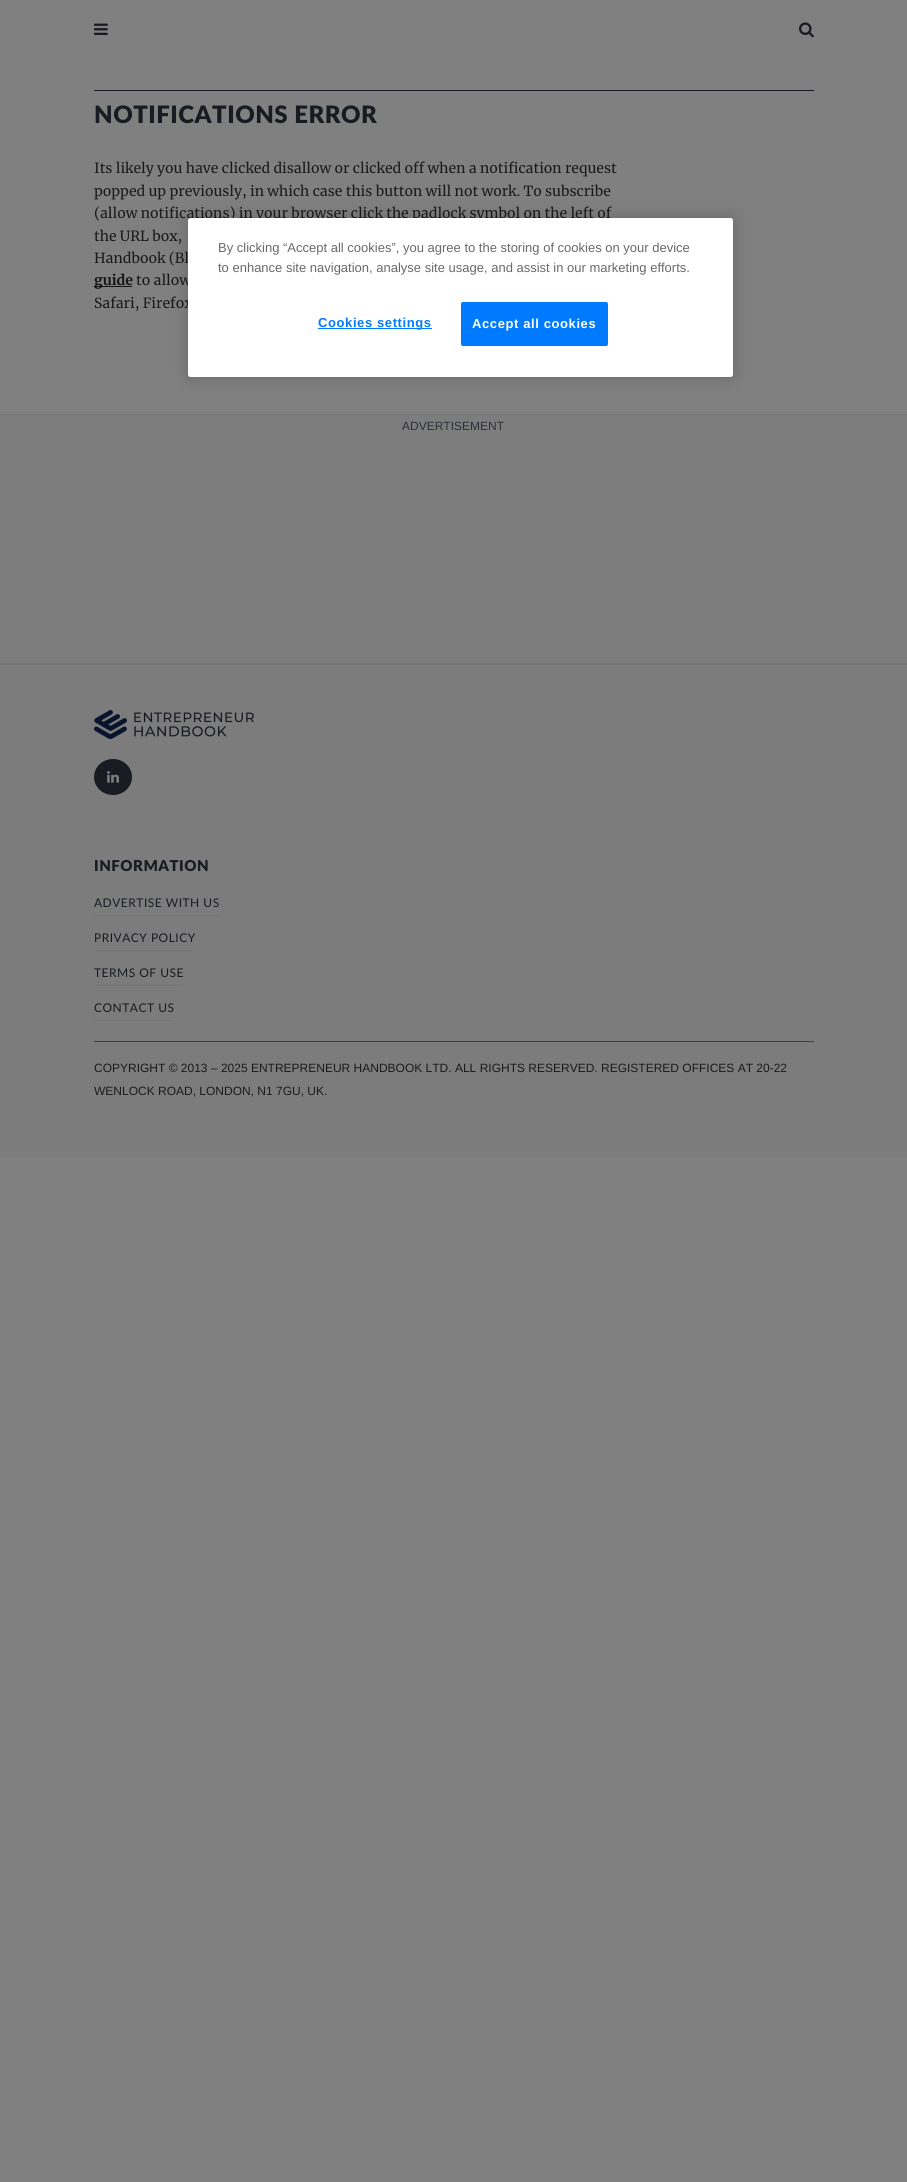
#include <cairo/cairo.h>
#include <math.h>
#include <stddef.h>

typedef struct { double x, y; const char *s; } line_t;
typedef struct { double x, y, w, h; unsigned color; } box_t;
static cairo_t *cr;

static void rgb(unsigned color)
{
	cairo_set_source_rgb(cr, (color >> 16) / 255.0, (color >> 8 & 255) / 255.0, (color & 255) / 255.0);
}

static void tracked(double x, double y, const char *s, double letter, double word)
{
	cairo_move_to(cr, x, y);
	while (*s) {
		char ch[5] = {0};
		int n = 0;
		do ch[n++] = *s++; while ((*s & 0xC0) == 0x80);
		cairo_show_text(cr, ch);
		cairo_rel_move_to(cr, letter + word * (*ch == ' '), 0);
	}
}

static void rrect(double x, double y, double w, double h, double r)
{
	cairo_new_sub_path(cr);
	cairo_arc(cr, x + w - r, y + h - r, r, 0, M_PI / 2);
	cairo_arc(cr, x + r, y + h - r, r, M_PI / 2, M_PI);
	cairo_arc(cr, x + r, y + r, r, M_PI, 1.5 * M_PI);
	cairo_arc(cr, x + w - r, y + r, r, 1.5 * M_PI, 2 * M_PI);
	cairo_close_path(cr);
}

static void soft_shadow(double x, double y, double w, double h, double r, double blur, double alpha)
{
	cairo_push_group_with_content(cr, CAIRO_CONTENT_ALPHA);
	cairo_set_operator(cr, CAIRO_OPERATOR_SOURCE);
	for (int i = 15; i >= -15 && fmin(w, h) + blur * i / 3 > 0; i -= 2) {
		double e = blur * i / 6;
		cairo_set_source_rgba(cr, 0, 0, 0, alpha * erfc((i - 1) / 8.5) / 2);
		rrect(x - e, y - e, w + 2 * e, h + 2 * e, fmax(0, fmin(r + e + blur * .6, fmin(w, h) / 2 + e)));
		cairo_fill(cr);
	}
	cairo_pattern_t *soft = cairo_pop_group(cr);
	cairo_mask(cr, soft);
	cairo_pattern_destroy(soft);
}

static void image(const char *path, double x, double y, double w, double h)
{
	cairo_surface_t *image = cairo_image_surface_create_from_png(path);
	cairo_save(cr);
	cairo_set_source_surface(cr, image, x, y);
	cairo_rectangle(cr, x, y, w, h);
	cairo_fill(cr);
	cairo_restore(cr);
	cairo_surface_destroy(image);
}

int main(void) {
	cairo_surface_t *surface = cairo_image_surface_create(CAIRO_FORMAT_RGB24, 907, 2182);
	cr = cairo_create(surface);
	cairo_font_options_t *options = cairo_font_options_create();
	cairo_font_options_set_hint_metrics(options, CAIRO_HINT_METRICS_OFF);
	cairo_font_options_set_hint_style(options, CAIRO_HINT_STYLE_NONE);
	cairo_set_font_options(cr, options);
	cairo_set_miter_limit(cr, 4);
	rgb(0x808080);
	cairo_paint(cr);
	image("img/1.png", 94, 23, 14, 12);
	image("img/2.png", 799, 22, 15, 16);
	{
		static const box_t items[] = {
			{94, 90, 720, 1, 0x181b21},
			{94, 286, 38, 1, 0x141414},
			{0, 415, 907, 248, 0x7d7d7d},
			{0, 414, 907, 1, 0x757575},
			{0, 663, 907, 2, 0x757575},
			{0, 665, 907, 492, 0x7c7c7c},
		};
		for (size_t i = 0; i < sizeof items / sizeof *items; i++) {
			rgb(items[i].color);
			cairo_rectangle(cr, items[i].x, items[i].y, items[i].w, items[i].h);
			cairo_fill(cr);
		}
	}
	image("img/3.png", 94, 710, 160, 29);
	rgb(0x181b21);
	cairo_new_path(cr);
	cairo_move_to(cr, 113, 759);
	cairo_curve_to(cr, 123.5, 759, 132, 767, 132, 777);
	cairo_curve_to(cr, 132, 787, 123.5, 795, 113, 795);
	cairo_curve_to(cr, 102.5, 795, 94, 787, 94, 777);
	cairo_curve_to(cr, 94, 767, 102.5, 759, 113, 759);
	cairo_close_path(cr);
	cairo_fill(cr);
	image("img/4.png", 107, 771, 12, 12);
	{
		static const box_t items[] = {
			{94, 915, 125, 1, 0x757575},
			{94, 950, 101, 1, 0x757575},
			{94, 985, 89, 1, 0x757575},
			{94, 1020, 80, 1, 0x757575},
			{94, 1041, 720, 1, 0x3a3f46},
		};
		for (size_t i = 0; i < sizeof items / sizeof *items; i++) {
			rgb(items[i].color);
			cairo_rectangle(cr, items[i].x, items[i].y, items[i].w, items[i].h);
			cairo_fill(cr);
		}
	}
	rgb(0x000000);
	soft_shadow(188, 218, 545, 159, 2.5, 9, 0.2);
	cairo_select_font_face(cr, "Lato Black", CAIRO_FONT_SLANT_NORMAL, CAIRO_FONT_WEIGHT_NORMAL);
	cairo_set_font_size(cr, 24);
	rgb(0x181b21);
	tracked(94, 123, "NOTIFICATIONS ERROR", 0.5, 0);
	cairo_select_font_face(cr, "Merriweather", CAIRO_FONT_SLANT_NORMAL, CAIRO_FONT_WEIGHT_NORMAL);
	cairo_set_font_size(cr, 14);
	rgb(0x1a1a1a);
	{
		static const line_t items[] = {
			{94, 173, "Its likely you have clicked disallow or clicked off when a notification request"},
			{94, 196, "popped up previously, in which case this button will not work. To subscribe"},
			{94, 218, "(allow notifications) in your browser click the padlock symbol on the left of"},
			{94, 241, "the URL box,"},
			{94, 263, "Handbook (Bl"},
		};
		for (size_t i = 0; i < sizeof items / sizeof *items; i++) {
			cairo_move_to(cr, items[i].x, items[i].y);
			cairo_show_text(cr, items[i].s);
		}
	}
	cairo_select_font_face(cr, "Merriweather", CAIRO_FONT_SLANT_NORMAL, CAIRO_FONT_WEIGHT_BOLD);
	rgb(0x141414);
	cairo_move_to(cr, 94, 285);
	cairo_show_text(cr, "guide");
	cairo_select_font_face(cr, "Merriweather", CAIRO_FONT_SLANT_NORMAL, CAIRO_FONT_WEIGHT_NORMAL);
	rgb(0x1a1a1a);
	cairo_move_to(cr, 136, 285);
	cairo_show_text(cr, "to allow");
	cairo_move_to(cr, 94, 308);
	cairo_show_text(cr, "Safari, Firefox");
	cairo_select_font_face(cr, "Liberation Sans", CAIRO_FONT_SLANT_NORMAL, CAIRO_FONT_WEIGHT_NORMAL);
	cairo_set_font_size(cr, 12);
	rgb(0x2c3038);
	cairo_move_to(cr, 402, 430);
	cairo_show_text(cr, "ADVERTISEMENT");
	cairo_select_font_face(cr, "Lato Black", CAIRO_FONT_SLANT_NORMAL, CAIRO_FONT_WEIGHT_NORMAL);
	cairo_set_font_size(cr, 15);
	rgb(0x181b21);
	tracked(94, 871, "INFORMATION", 0.5, 0);
	cairo_select_font_face(cr, "Lato", CAIRO_FONT_SLANT_NORMAL, CAIRO_FONT_WEIGHT_NORMAL);
	cairo_set_font_size(cr, 12);
	{
		static const line_t items[] = {
			{94, 907, "ADVERTISE WITH US"},
			{94, 942, "PRIVACY POLICY"},
			{94, 977, "TERMS OF USE"},
			{94, 1012, "CONTACT US"},
		};
		for (size_t i = 0; i < sizeof items / sizeof *items; i++) {
			tracked(items[i].x, items[i].y, items[i].s, 0.5, 0);
		}
	}
	cairo_select_font_face(cr, "Liberation Sans", CAIRO_FONT_SLANT_NORMAL, CAIRO_FONT_WEIGHT_NORMAL);
	rgb(0x1a1a1a);
	cairo_move_to(cr, 94, 1072);
	cairo_show_text(cr, "COPYRIGHT © 2013 – 2025 ENTREPRENEUR HANDBOOK LTD. ALL RIGHTS RESERVED. REGISTERED OFFICES AT 20-22");
	cairo_move_to(cr, 94, 1095);
	cairo_show_text(cr, "WENLOCK ROAD, LONDON, N1 7GU, UK.");
	rgb(0xffffff);
	rrect(188, 218, 545, 159, 2.5);
	cairo_fill(cr);
	cairo_set_font_size(cr, 13);
	rgb(0x696969);
	cairo_move_to(cr, 218, 252);
	cairo_show_text(cr, "By clicking “Accept all cookies”, you agree to the storing of cookies on your device");
	cairo_move_to(cr, 218, 272);
	cairo_show_text(cr, "to enhance site navigation, analyse site usage, and assist in our marketing efforts.");
	rgb(0x007aff);
	cairo_rectangle(cr, 318, 328, 114, 1);
	cairo_fill(cr);
	cairo_select_font_face(cr, "Liberation Sans", CAIRO_FONT_SLANT_NORMAL, CAIRO_FONT_WEIGHT_BOLD);
	tracked(318, 327, "Cookies settings", 0.6, 0);
	rrect(461.5, 302.5, 146, 43, 1.5);
	cairo_fill_preserve(cr);
	cairo_set_line_width(cr, 1);
	cairo_stroke(cr);
	rgb(0xffffff);
	tracked(472, 328, "Accept all cookies", 0.6, 0);
	cairo_surface_write_to_png(surface, "page.png");
	cairo_font_options_destroy(options);
	cairo_destroy(cr);
	cairo_surface_destroy(surface);
	return 0;
}
